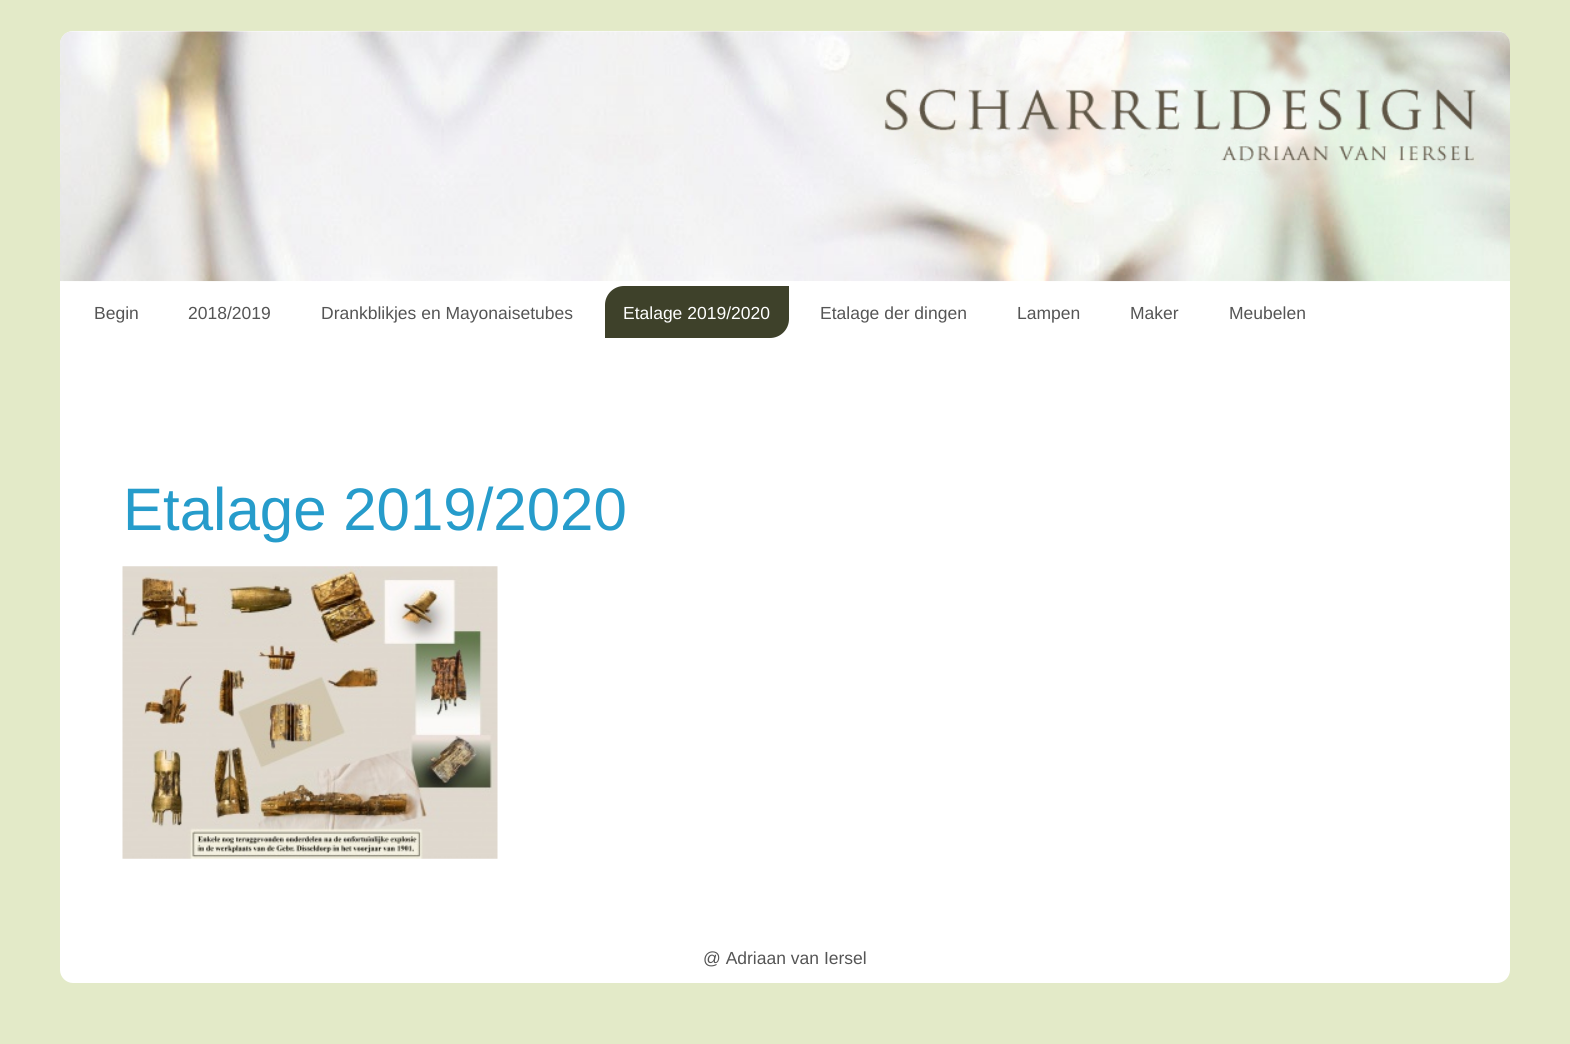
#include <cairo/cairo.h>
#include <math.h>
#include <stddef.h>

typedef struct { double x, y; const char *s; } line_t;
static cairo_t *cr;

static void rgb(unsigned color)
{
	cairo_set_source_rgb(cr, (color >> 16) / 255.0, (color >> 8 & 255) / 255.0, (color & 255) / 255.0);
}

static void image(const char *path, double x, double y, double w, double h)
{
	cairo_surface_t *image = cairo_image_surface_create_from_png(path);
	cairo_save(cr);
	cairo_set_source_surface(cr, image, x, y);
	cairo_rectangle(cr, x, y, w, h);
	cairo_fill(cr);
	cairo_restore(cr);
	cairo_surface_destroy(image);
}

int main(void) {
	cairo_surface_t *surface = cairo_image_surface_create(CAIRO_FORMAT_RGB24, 1570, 1044);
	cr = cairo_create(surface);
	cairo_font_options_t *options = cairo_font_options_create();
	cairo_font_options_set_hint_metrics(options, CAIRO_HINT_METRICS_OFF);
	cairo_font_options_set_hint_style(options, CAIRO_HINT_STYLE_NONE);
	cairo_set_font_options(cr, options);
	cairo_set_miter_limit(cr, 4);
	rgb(0xe3eac8);
	cairo_paint(cr);
	rgb(0xffffff);
	cairo_new_path(cr);
	cairo_move_to(cr, 73, 31);
	cairo_line_to(cr, 1497, 31);
	cairo_curve_to(cr, 1504, 31, 1510, 37, 1510, 44);
	cairo_line_to(cr, 1510, 468);
	cairo_line_to(cr, 60, 468);
	cairo_line_to(cr, 60, 44);
	cairo_curve_to(cr, 60, 37, 66, 31, 73, 31);
	cairo_close_path(cr);
	cairo_fill(cr);
	image("img/1.png", 60, 31, 1450, 251);
	rgb(0x3e412a);
	cairo_new_path(cr);
	cairo_move_to(cr, 624, 286);
	cairo_line_to(cr, 789, 286);
	cairo_line_to(cr, 789, 319);
	cairo_curve_to(cr, 789, 329.5, 780.5, 338, 770, 338);
	cairo_line_to(cr, 605, 338);
	cairo_line_to(cr, 605, 305);
	cairo_curve_to(cr, 605, 294.5, 613.5, 286, 624, 286);
	cairo_close_path(cr);
	cairo_fill(cr);
	rgb(0xffffff);
	cairo_rectangle(cr, 60, 468, 1450, 471);
	cairo_fill(cr);
	image("img/2.png", 122, 566, 376, 293);
	cairo_new_path(cr);
	cairo_move_to(cr, 60, 939);
	cairo_line_to(cr, 1510, 939);
	cairo_line_to(cr, 1510, 970);
	cairo_curve_to(cr, 1510, 977, 1504, 983, 1497, 983);
	cairo_line_to(cr, 73, 983);
	cairo_curve_to(cr, 66, 983, 60, 977, 60, 970);
	cairo_close_path(cr);
	cairo_fill(cr);
	cairo_select_font_face(cr, "Liberation Sans", CAIRO_FONT_SLANT_NORMAL, CAIRO_FONT_WEIGHT_NORMAL);
	cairo_set_font_size(cr, 17.5);
	rgb(0x555555);
	{
		static const line_t items[] = {
			{94, 319, "Begin"},
			{188, 319, "2018/2019"},
			{321, 319, "Drankblikjes en Mayonaisetubes"},
		};
		for (size_t i = 0; i < sizeof items / sizeof *items; i++) {
			cairo_move_to(cr, items[i].x, items[i].y);
			cairo_show_text(cr, items[i].s);
		}
	}
	rgb(0xffffff);
	cairo_move_to(cr, 623, 319);
	cairo_show_text(cr, "Etalage 2019/2020");
	rgb(0x555555);
	{
		static const line_t items[] = {
			{820, 319, "Etalage der dingen"},
			{1017, 319, "Lampen"},
			{1130, 319, "Maker"},
			{1229, 319, "Meubelen"},
		};
		for (size_t i = 0; i < sizeof items / sizeof *items; i++) {
			cairo_move_to(cr, items[i].x, items[i].y);
			cairo_show_text(cr, items[i].s);
		}
	}
	cairo_set_font_size(cr, 60);
	rgb(0x269ccb);
	cairo_move_to(cr, 123, 530);
	cairo_show_text(cr, "Etalage 2019/2020");
	cairo_set_font_size(cr, 17.5);
	rgb(0x555555);
	cairo_move_to(cr, 703, 964);
	cairo_show_text(cr, "@ Adriaan van Iersel");
	cairo_surface_write_to_png(surface, "page.png");
	cairo_font_options_destroy(options);
	cairo_destroy(cr);
	cairo_surface_destroy(surface);
	return 0;
}
